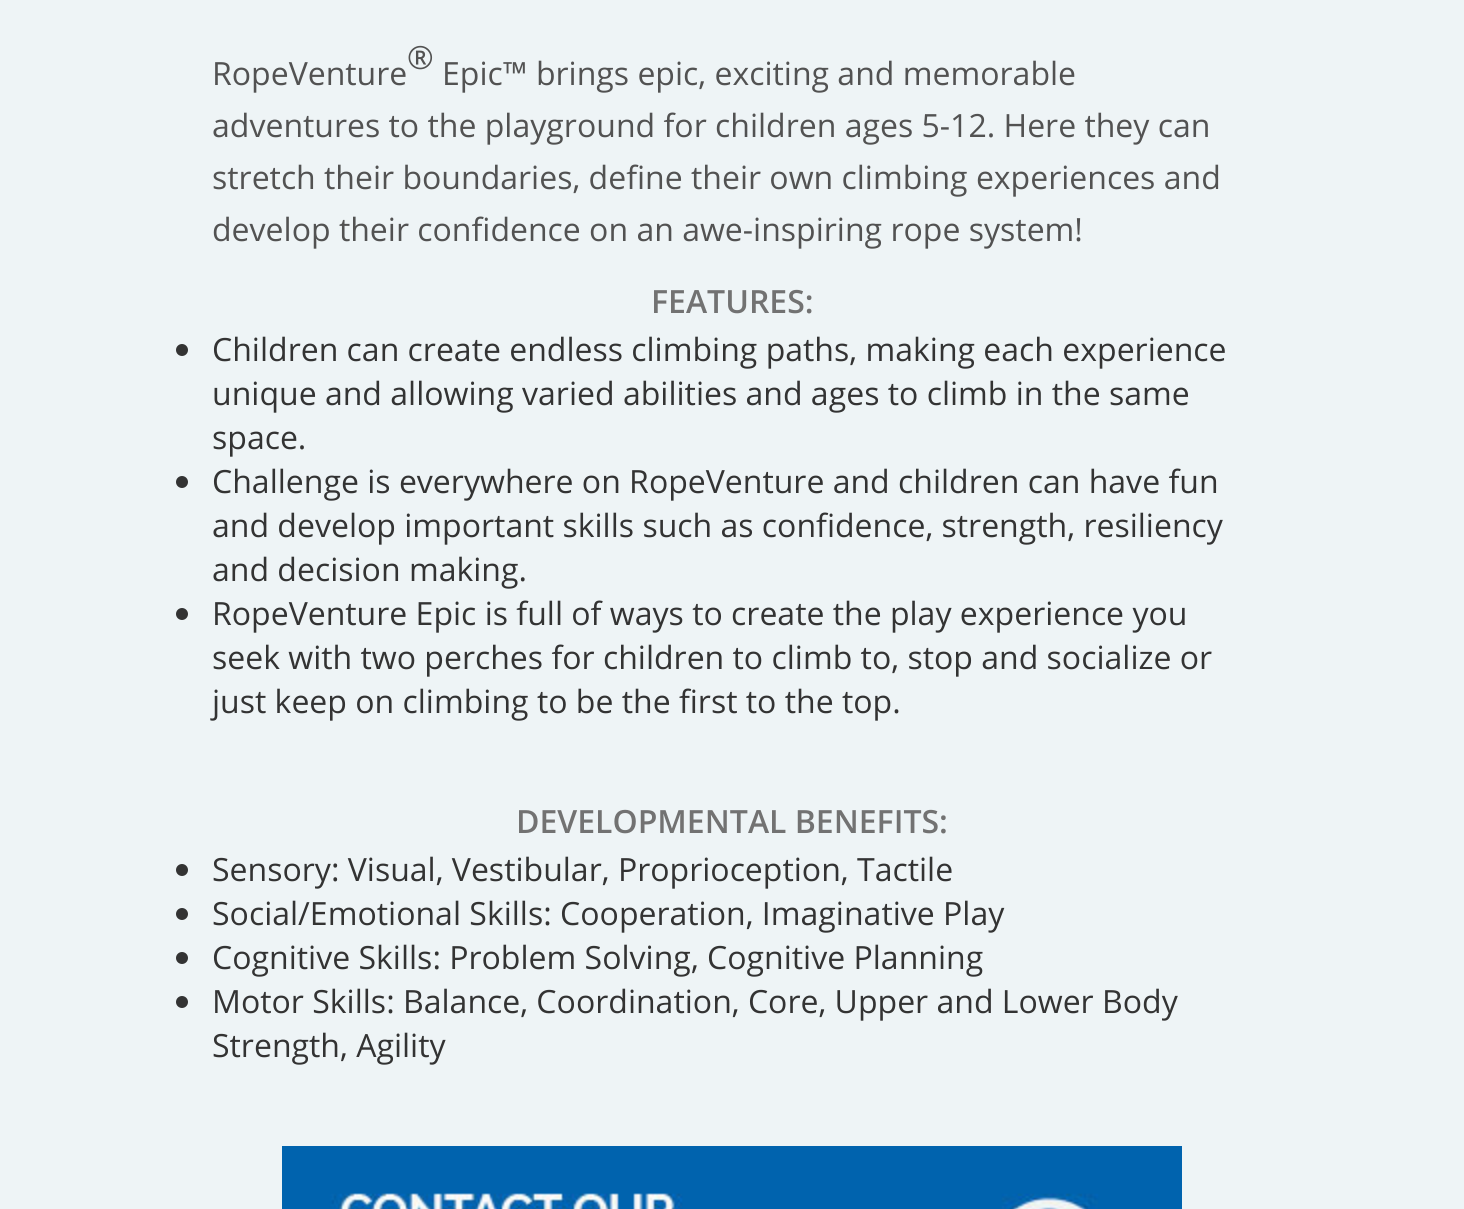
#include <cairo/cairo.h>
#include <math.h>
#include <stddef.h>

typedef struct { double x, y; const char *s; } line_t;
static cairo_t *cr;

static void rgb(unsigned color)
{
	cairo_set_source_rgb(cr, (color >> 16) / 255.0, (color >> 8 & 255) / 255.0, (color & 255) / 255.0);
}

static void image(const char *path, double x, double y, double w, double h)
{
	cairo_surface_t *image = cairo_image_surface_create_from_png(path);
	cairo_save(cr);
	cairo_set_source_surface(cr, image, x, y);
	cairo_rectangle(cr, x, y, w, h);
	cairo_fill(cr);
	cairo_restore(cr);
	cairo_surface_destroy(image);
}

int main(void) {
	cairo_surface_t *surface = cairo_image_surface_create(CAIRO_FORMAT_RGB24, 1464, 1209);
	cr = cairo_create(surface);
	cairo_font_options_t *options = cairo_font_options_create();
	cairo_font_options_set_hint_metrics(options, CAIRO_HINT_METRICS_OFF);
	cairo_font_options_set_hint_style(options, CAIRO_HINT_STYLE_NONE);
	cairo_set_font_options(cr, options);
	cairo_set_miter_limit(cr, 4);
	rgb(0xeef4f6);
	cairo_paint(cr);
	rgb(0x333333);
	cairo_arc(cr, 182, 350, 6, 0, 2 * M_PI);
	cairo_fill(cr);
	cairo_arc(cr, 182, 482, 6, 0, 2 * M_PI);
	cairo_fill(cr);
	cairo_arc(cr, 182, 614, 6, 0, 2 * M_PI);
	cairo_fill(cr);
	cairo_arc(cr, 182, 870, 6, 0, 2 * M_PI);
	cairo_fill(cr);
	cairo_arc(cr, 182, 914, 6, 0, 2 * M_PI);
	cairo_fill(cr);
	cairo_arc(cr, 182, 958, 6, 0, 2 * M_PI);
	cairo_fill(cr);
	cairo_arc(cr, 182, 1002, 6, 0, 2 * M_PI);
	cairo_fill(cr);
	image("img/1.png", 282, 1146, 900, 63);
	cairo_select_font_face(cr, "Open Sans", CAIRO_FONT_SLANT_NORMAL, CAIRO_FONT_WEIGHT_NORMAL);
	cairo_set_font_size(cr, 32);
	rgb(0x525252);
	{
		static const line_t items[] = {
			{407, 69, "®"},
			{212, 85, "RopeVenture"},
			{442, 85, "Epic™ brings epic, exciting and memorable"},
			{212, 137, "adventures to the playground for children ages 5-12. Here they can"},
			{212, 189, "stretch their boundaries, define their own climbing experiences and"},
			{212, 241, "develop their confidence on an awe-inspiring rope system!"},
		};
		for (size_t i = 0; i < sizeof items / sizeof *items; i++) {
			cairo_move_to(cr, items[i].x, items[i].y);
			cairo_show_text(cr, items[i].s);
		}
	}
	cairo_select_font_face(cr, "Open Sans SemiBold", CAIRO_FONT_SLANT_NORMAL, CAIRO_FONT_WEIGHT_NORMAL);
	rgb(0x727272);
	cairo_move_to(cr, 651, 313);
	cairo_show_text(cr, "FEATURES:");
	cairo_select_font_face(cr, "Open Sans", CAIRO_FONT_SLANT_NORMAL, CAIRO_FONT_WEIGHT_NORMAL);
	rgb(0x333333);
	{
		static const line_t items[] = {
			{212, 361, "Children can create endless climbing paths, making each experience"},
			{212, 405, "unique and allowing varied abilities and ages to climb in the same"},
			{212, 449, "space."},
			{212, 493, "Challenge is everywhere on RopeVenture and children can have fun"},
			{212, 537, "and develop important skills such as confidence, strength, resiliency"},
			{212, 581, "and decision making."},
			{212, 625, "RopeVenture Epic is full of ways to create the play experience you"},
			{212, 669, "seek with two perches for children to climb to, stop and socialize or"},
			{212, 713, "just keep on climbing to be the first to the top."},
		};
		for (size_t i = 0; i < sizeof items / sizeof *items; i++) {
			cairo_move_to(cr, items[i].x, items[i].y);
			cairo_show_text(cr, items[i].s);
		}
	}
	cairo_select_font_face(cr, "Open Sans SemiBold", CAIRO_FONT_SLANT_NORMAL, CAIRO_FONT_WEIGHT_NORMAL);
	rgb(0x727272);
	cairo_move_to(cr, 516, 833);
	cairo_show_text(cr, "DEVELOPMENTAL BENEFITS:");
	cairo_select_font_face(cr, "Open Sans", CAIRO_FONT_SLANT_NORMAL, CAIRO_FONT_WEIGHT_NORMAL);
	rgb(0x333333);
	{
		static const line_t items[] = {
			{212, 881, "Sensory: Visual, Vestibular, Proprioception, Tactile"},
			{212, 925, "Social/Emotional Skills: Cooperation, Imaginative Play"},
			{212, 969, "Cognitive Skills: Problem Solving, Cognitive Planning"},
			{212, 1013, "Motor Skills: Balance, Coordination, Core, Upper and Lower Body"},
			{212, 1057, "Strength, Agility"},
		};
		for (size_t i = 0; i < sizeof items / sizeof *items; i++) {
			cairo_move_to(cr, items[i].x, items[i].y);
			cairo_show_text(cr, items[i].s);
		}
	}
	cairo_surface_write_to_png(surface, "page.png");
	cairo_font_options_destroy(options);
	cairo_destroy(cr);
	cairo_surface_destroy(surface);
	return 0;
}
